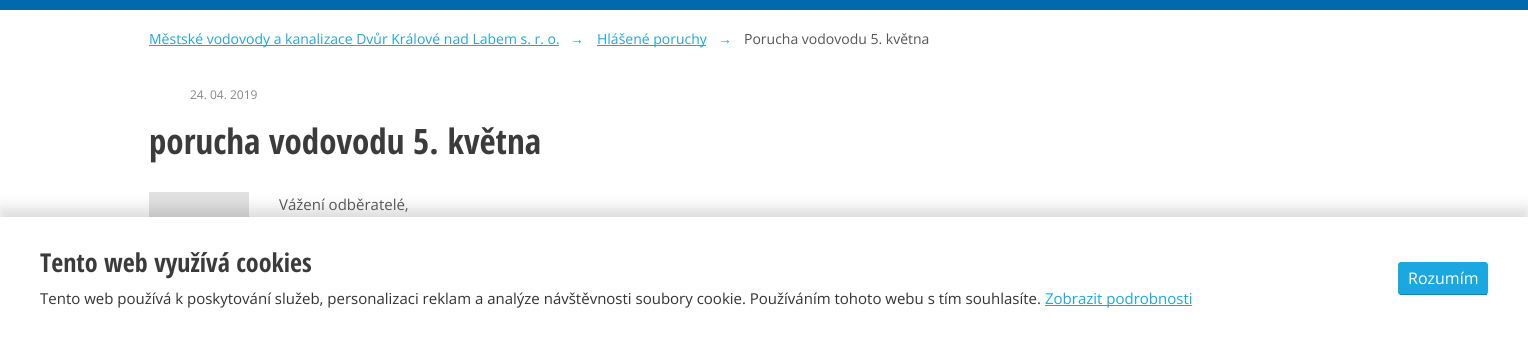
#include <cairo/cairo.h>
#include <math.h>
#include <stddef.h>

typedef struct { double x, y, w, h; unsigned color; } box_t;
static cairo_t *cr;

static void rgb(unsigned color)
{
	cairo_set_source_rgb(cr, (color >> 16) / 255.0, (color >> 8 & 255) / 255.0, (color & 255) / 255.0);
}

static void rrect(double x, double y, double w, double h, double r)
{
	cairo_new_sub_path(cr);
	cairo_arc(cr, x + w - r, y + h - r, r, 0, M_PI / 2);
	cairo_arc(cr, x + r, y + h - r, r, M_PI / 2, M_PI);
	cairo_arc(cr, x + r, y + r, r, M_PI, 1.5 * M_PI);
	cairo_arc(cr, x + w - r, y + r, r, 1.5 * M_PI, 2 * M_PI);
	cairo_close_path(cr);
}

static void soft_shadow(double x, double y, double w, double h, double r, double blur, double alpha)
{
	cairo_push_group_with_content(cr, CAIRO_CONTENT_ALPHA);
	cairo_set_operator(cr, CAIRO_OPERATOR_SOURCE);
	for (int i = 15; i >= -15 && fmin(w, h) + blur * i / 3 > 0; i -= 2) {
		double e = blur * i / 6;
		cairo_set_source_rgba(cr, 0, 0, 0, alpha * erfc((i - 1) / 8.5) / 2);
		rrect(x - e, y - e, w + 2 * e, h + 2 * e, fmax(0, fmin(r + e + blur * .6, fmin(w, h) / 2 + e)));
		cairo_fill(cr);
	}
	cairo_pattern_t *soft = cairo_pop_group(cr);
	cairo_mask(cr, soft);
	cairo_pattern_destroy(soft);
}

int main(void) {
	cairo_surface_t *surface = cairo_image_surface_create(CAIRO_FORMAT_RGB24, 1528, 339);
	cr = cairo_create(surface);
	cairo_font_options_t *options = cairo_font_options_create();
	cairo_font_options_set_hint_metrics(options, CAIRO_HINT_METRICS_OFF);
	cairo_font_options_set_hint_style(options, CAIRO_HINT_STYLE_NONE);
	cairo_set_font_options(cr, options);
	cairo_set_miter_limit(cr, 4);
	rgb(0xffffff);
	cairo_paint(cr);
	{
		static const box_t items[] = {
			{0, 0, 1528, 10, 0x016aae},
			{149, 45, 410, 1, 0x1ba8e0},
			{597, 45, 109, 1, 0x1ba8e0},
			{149, 192, 100, 25, 0xe1e1e1},
		};
		for (size_t i = 0; i < sizeof items / sizeof *items; i++) {
			rgb(items[i].color);
			cairo_rectangle(cr, items[i].x, items[i].y, items[i].w, items[i].h);
			cairo_fill(cr);
		}
	}
	rgb(0x000000);
	soft_shadow(0, 209, 1528, 122, 0, 8, 0.15);
	rgb(0xffffff);
	cairo_rectangle(cr, 0, 217, 1528, 122);
	cairo_fill(cr);
	rgb(0x1ba8e0);
	cairo_rectangle(cr, 1045, 305, 147, 1);
	cairo_fill(cr);
	rrect(1398, 262, 90, 33, 3);
	cairo_fill(cr);
	rgb(0x1686b2);
	cairo_rectangle(cr, 1400, 294, 87, 1);
	cairo_fill(cr);
	cairo_select_font_face(cr, "Open Sans", CAIRO_FONT_SLANT_NORMAL, CAIRO_FONT_WEIGHT_NORMAL);
	cairo_set_font_size(cr, 14);
	rgb(0x1ba8e0);
	cairo_move_to(cr, 149, 44);
	cairo_show_text(cr, "Městské vodovody a kanalizace Dvůr Králové nad Labem s. r. o.");
	cairo_select_font_face(cr, "Liberation Sans", CAIRO_FONT_SLANT_NORMAL, CAIRO_FONT_WEIGHT_BOLD);
	cairo_move_to(cr, 570, 44);
	cairo_show_text(cr, "→");
	cairo_select_font_face(cr, "Open Sans", CAIRO_FONT_SLANT_NORMAL, CAIRO_FONT_WEIGHT_NORMAL);
	cairo_move_to(cr, 597, 44);
	cairo_show_text(cr, "Hlášené poruchy");
	cairo_select_font_face(cr, "Liberation Sans", CAIRO_FONT_SLANT_NORMAL, CAIRO_FONT_WEIGHT_BOLD);
	cairo_move_to(cr, 718, 44);
	cairo_show_text(cr, "→");
	cairo_select_font_face(cr, "Open Sans", CAIRO_FONT_SLANT_NORMAL, CAIRO_FONT_WEIGHT_NORMAL);
	rgb(0x555555);
	cairo_move_to(cr, 744, 44);
	cairo_show_text(cr, "Porucha vodovodu 5. května");
	cairo_set_font_size(cr, 12);
	rgb(0x888888);
	cairo_move_to(cr, 190, 99);
	cairo_show_text(cr, "24. 04. 2019");
	cairo_select_font_face(cr, "Open Sans Condensed", CAIRO_FONT_SLANT_NORMAL, CAIRO_FONT_WEIGHT_BOLD);
	cairo_set_font_size(cr, 35);
	rgb(0x3b3b3b);
	cairo_move_to(cr, 149, 154);
	cairo_show_text(cr, "porucha vodovodu 5. května");
	cairo_select_font_face(cr, "Open Sans", CAIRO_FONT_SLANT_NORMAL, CAIRO_FONT_WEIGHT_NORMAL);
	cairo_set_font_size(cr, 15);
	rgb(0x555555);
	cairo_move_to(cr, 279, 210);
	cairo_show_text(cr, "Vážení odběratelé,");
	cairo_select_font_face(cr, "Open Sans Condensed", CAIRO_FONT_SLANT_NORMAL, CAIRO_FONT_WEIGHT_BOLD);
	cairo_set_font_size(cr, 26);
	rgb(0x3b3b3b);
	cairo_move_to(cr, 40, 272);
	cairo_show_text(cr, "Tento web využívá cookies");
	cairo_select_font_face(cr, "Open Sans", CAIRO_FONT_SLANT_NORMAL, CAIRO_FONT_WEIGHT_NORMAL);
	cairo_set_font_size(cr, 15);
	rgb(0x333333);
	cairo_move_to(cr, 40, 304);
	cairo_show_text(cr, "Tento web používá k poskytování služeb, personalizaci reklam a analýze návštěvnosti soubory cookie. Používáním tohoto webu s tím souhlasíte.");
	rgb(0x1ba8e0);
	cairo_move_to(cr, 1045, 304);
	cairo_show_text(cr, "Zobrazit podrobnosti");
	cairo_set_font_size(cr, 16);
	rgb(0xffffff);
	cairo_move_to(cr, 1408, 284);
	cairo_show_text(cr, "Rozumím");
	cairo_surface_write_to_png(surface, "page.png");
	cairo_font_options_destroy(options);
	cairo_destroy(cr);
	cairo_surface_destroy(surface);
	return 0;
}
